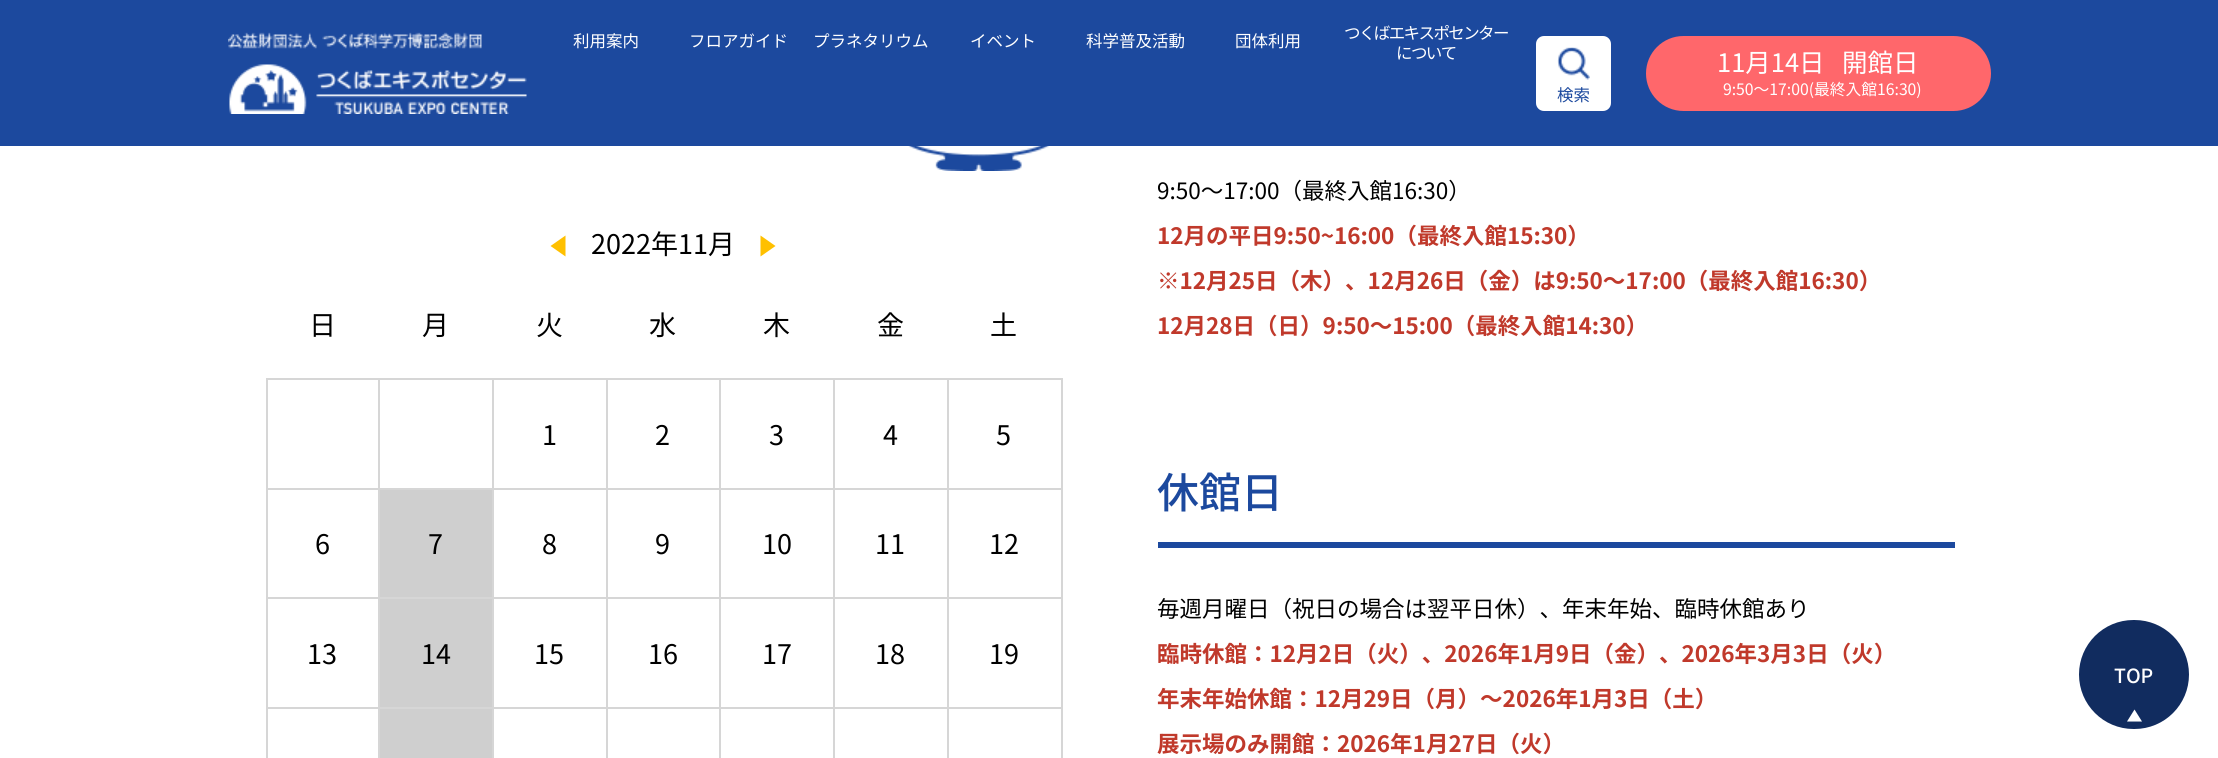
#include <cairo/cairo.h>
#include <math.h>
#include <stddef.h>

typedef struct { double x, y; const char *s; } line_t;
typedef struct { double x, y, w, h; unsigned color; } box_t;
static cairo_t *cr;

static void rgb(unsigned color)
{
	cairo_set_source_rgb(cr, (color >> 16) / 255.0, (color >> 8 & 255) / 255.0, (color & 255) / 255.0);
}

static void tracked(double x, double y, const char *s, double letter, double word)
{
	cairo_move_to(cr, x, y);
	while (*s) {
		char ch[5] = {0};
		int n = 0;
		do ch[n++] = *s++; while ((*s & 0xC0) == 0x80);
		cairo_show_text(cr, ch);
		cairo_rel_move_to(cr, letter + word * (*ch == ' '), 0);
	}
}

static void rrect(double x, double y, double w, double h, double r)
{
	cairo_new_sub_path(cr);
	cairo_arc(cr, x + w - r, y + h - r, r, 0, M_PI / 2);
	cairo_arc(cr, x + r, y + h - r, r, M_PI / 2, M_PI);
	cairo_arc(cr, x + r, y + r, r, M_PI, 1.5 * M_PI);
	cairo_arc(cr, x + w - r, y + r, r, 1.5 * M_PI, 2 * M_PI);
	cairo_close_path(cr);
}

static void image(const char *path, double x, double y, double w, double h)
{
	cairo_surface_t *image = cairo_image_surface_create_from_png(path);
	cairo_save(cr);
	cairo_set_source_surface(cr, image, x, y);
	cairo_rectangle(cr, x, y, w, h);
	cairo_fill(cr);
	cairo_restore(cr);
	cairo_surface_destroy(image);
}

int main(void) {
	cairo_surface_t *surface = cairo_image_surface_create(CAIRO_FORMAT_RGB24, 2218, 758);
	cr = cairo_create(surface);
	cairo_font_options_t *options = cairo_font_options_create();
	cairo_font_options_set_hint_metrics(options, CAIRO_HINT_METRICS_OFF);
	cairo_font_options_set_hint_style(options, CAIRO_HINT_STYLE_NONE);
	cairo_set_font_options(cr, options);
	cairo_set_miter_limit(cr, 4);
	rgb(0xffffff);
	cairo_paint(cr);
	rgb(0x1c499e);
	cairo_rectangle(cr, 0, 0, 2218, 146);
	cairo_fill(cr);
	rgb(0xffffff);
	rrect(1536, 36, 75, 75, 8);
	cairo_fill(cr);
	image("img/1.png", 1557, 47, 33, 33);
	image("img/2.png", 228, 32, 299, 82);
	rgb(0xff676b);
	rrect(1646, 36, 345, 75, 37.5);
	cairo_fill(cr);
	image("img/3.png", 908, 146, 141, 25);
	rgb(0xffc000);
	cairo_new_path(cr);
	cairo_move_to(cr, 565.5, 235.5);
	cairo_line_to(cr, 565.5, 256.5);
	cairo_line_to(cr, 550.5, 246);
	cairo_close_path(cr);
	cairo_fill(cr);
	cairo_new_path(cr);
	cairo_move_to(cr, 760.5, 256.5);
	cairo_line_to(cr, 760.5, 235.5);
	cairo_line_to(cr, 775.5, 246);
	cairo_close_path(cr);
	cairo_fill(cr);
	{
		static const box_t items[] = {
			{1061, 378, 2, 380, 0xd6d6d6},
			{947, 707, 2, 51, 0xd6d6d6},
			{947, 707, 115, 2, 0xd6d6d6},
			{947, 597, 2, 111, 0xd6d6d6},
			{947, 597, 115, 2, 0xd6d6d6},
			{947, 488, 2, 111, 0xd6d6d6},
			{947, 488, 115, 2, 0xd6d6d6},
			{947, 378, 2, 111, 0xd6d6d6},
			{833, 707, 2, 51, 0xd6d6d6},
			{833, 707, 115, 2, 0xd6d6d6},
			{833, 597, 2, 111, 0xd6d6d6},
			{833, 597, 115, 2, 0xd6d6d6},
			{833, 488, 2, 111, 0xd6d6d6},
			{833, 488, 115, 2, 0xd6d6d6},
			{833, 378, 2, 111, 0xd6d6d6},
			{719, 707, 2, 51, 0xd6d6d6},
			{719, 707, 115, 2, 0xd6d6d6},
			{719, 597, 2, 111, 0xd6d6d6},
			{719, 597, 115, 2, 0xd6d6d6},
			{719, 488, 2, 111, 0xd6d6d6},
			{719, 488, 115, 2, 0xd6d6d6},
			{719, 378, 2, 111, 0xd6d6d6},
			{606, 707, 2, 51, 0xd6d6d6},
			{606, 707, 114, 2, 0xd6d6d6},
			{606, 597, 2, 111, 0xd6d6d6},
			{606, 597, 114, 2, 0xd6d6d6},
			{606, 488, 2, 111, 0xd6d6d6},
			{606, 488, 114, 2, 0xd6d6d6},
			{606, 378, 2, 111, 0xd6d6d6},
			{492, 707, 2, 51, 0xd6d6d6},
			{492, 707, 116, 2, 0xd6d6d6},
			{492, 597, 2, 111, 0xd6d6d6},
			{492, 597, 116, 2, 0xd6d6d6},
			{492, 488, 2, 111, 0xd6d6d6},
			{492, 488, 116, 2, 0xd6d6d6},
			{492, 378, 2, 111, 0xd6d6d6},
			{378, 707, 2, 51, 0xd6d6d6},
			{378, 707, 116, 2, 0xd6d6d6},
			{378, 597, 2, 111, 0xd6d6d6},
			{378, 597, 116, 2, 0xd6d6d6},
			{378, 488, 2, 111, 0xd6d6d6},
			{378, 488, 116, 2, 0xd6d6d6},
			{378, 378, 2, 111, 0xd6d6d6},
			{266, 707, 2, 51, 0xd6d6d6},
			{266, 707, 114, 2, 0xd6d6d6},
			{266, 597, 2, 111, 0xd6d6d6},
			{266, 597, 114, 2, 0xd6d6d6},
			{266, 488, 2, 111, 0xd6d6d6},
			{266, 488, 114, 2, 0xd6d6d6},
			{266, 378, 2, 111, 0xd6d6d6},
			{266, 378, 796, 2, 0xd6d6d6},
			{380, 709, 112, 49, 0xcfcfcf},
			{380, 490, 112, 107, 0xcfcfcf},
			{380, 599, 112, 108, 0xcfcfcf},
			{1158, 542, 797, 6, 0x1c499e},
		};
		for (size_t i = 0; i < sizeof items / sizeof *items; i++) {
			rgb(items[i].color);
			cairo_rectangle(cr, items[i].x, items[i].y, items[i].w, items[i].h);
			cairo_fill(cr);
		}
	}
	rgb(0x112c5f);
	rrect(2079, 620, 110, 109, 54.5);
	cairo_fill(cr);
	rgb(0xffffff);
	cairo_new_path(cr);
	cairo_move_to(cr, 2142, 721.5);
	cairo_line_to(cr, 2127, 721.5);
	cairo_line_to(cr, 2134.5, 709.5);
	cairo_close_path(cr);
	cairo_fill(cr);
	cairo_select_font_face(cr, "Noto Sans JP", CAIRO_FONT_SLANT_NORMAL, CAIRO_FONT_WEIGHT_NORMAL);
	cairo_set_font_size(cr, 16.5);
	{
		static const line_t items[] = {
			{573, 47, "利用案内"},
			{689, 47, "フロアガイド"},
			{813, 47, "プラネタリウム"},
			{970, 47, "イベント"},
			{1086, 47, "科学普及活動"},
			{1235, 47, "団体利用"},
		};
		for (size_t i = 0; i < sizeof items / sizeof *items; i++) {
			cairo_move_to(cr, items[i].x, items[i].y);
			cairo_show_text(cr, items[i].s);
		}
	}
	tracked(1344, 39, "つくばエキスポセンター", -1.6, 0);
	tracked(1396, 59, "について", -1.6, 0);
	rgb(0x1c499e);
	cairo_move_to(cr, 1557, 101);
	cairo_show_text(cr, "検索");
	cairo_set_font_size(cr, 25.5);
	rgb(0xffffff);
	cairo_move_to(cr, 1717, 72);
	cairo_show_text(cr, "11月14日");
	cairo_move_to(cr, 1842, 72);
	cairo_show_text(cr, "開館日");
	cairo_set_font_size(cr, 15.75);
	cairo_move_to(cr, 1723, 95);
	cairo_show_text(cr, "9:50～17:00(最終入館16:30)");
	cairo_set_font_size(cr, 27);
	rgb(0x000000);
	{
		static const line_t items[] = {
			{591, 254, "2022年11月"},
			{309, 335, "日"},
			{422, 335, "月"},
			{536, 335, "火"},
			{649, 335, "水"},
			{763, 335, "木"},
			{877, 335, "金"},
			{990, 335, "土"},
			{542, 445, "1"},
			{655, 445, "2"},
			{769, 445, "3"},
			{883, 445, "4"},
			{996, 445, "5"},
			{315, 554, "6"},
			{428, 554, "7"},
			{542, 554, "8"},
			{655, 554, "9"},
			{762, 554, "10"},
			{875, 554, "11"},
			{989, 554, "12"},
			{307, 664, "13"},
			{421, 664, "14"},
			{534, 664, "15"},
			{648, 664, "16"},
			{762, 664, "17"},
			{875, 664, "18"},
			{989, 664, "19"},
		};
		for (size_t i = 0; i < sizeof items / sizeof *items; i++) {
			cairo_move_to(cr, items[i].x, items[i].y);
			cairo_show_text(cr, items[i].s);
		}
	}
	cairo_set_font_size(cr, 22.5);
	cairo_move_to(cr, 1157, 199);
	cairo_show_text(cr, "9:50～17:00（最終入館16:30）");
	cairo_select_font_face(cr, "Noto Sans JP", CAIRO_FONT_SLANT_NORMAL, CAIRO_FONT_WEIGHT_BOLD);
	rgb(0xc0392b);
	{
		static const line_t items[] = {
			{1157, 244, "12月の平日9:50~16:00（最終入館15:30）"},
			{1157, 289, "※12月25日（木）、12月26日（金）は9:50～17:00（最終入館16:30）"},
			{1157, 334, "12月28日（日）9:50～15:00（最終入館14:30）"},
		};
		for (size_t i = 0; i < sizeof items / sizeof *items; i++) {
			cairo_move_to(cr, items[i].x, items[i].y);
			cairo_show_text(cr, items[i].s);
		}
	}
	cairo_select_font_face(cr, "Noto Sans JP Medium", CAIRO_FONT_SLANT_NORMAL, CAIRO_FONT_WEIGHT_NORMAL);
	cairo_set_font_size(cr, 42);
	rgb(0x1c499e);
	cairo_move_to(cr, 1157, 508);
	cairo_show_text(cr, "休館日");
	cairo_select_font_face(cr, "Noto Sans JP", CAIRO_FONT_SLANT_NORMAL, CAIRO_FONT_WEIGHT_NORMAL);
	cairo_set_font_size(cr, 22.5);
	rgb(0x000000);
	cairo_move_to(cr, 1157, 617);
	cairo_show_text(cr, "毎週月曜日（祝日の場合は翌平日休）、年末年始、臨時休館あり");
	cairo_select_font_face(cr, "Noto Sans JP", CAIRO_FONT_SLANT_NORMAL, CAIRO_FONT_WEIGHT_BOLD);
	rgb(0xc0392b);
	{
		static const line_t items[] = {
			{1157, 662, "臨時休館：12月2日（火）、2026年1月9日（金）、2026年3月3日（火）"},
			{1157, 707, "年末年始休館：12月29日（月）～2026年1月3日（土）"},
			{1157, 752, "展示場のみ開館：2026年1月27日（火）"},
		};
		for (size_t i = 0; i < sizeof items / sizeof *items; i++) {
			cairo_move_to(cr, items[i].x, items[i].y);
			cairo_show_text(cr, items[i].s);
		}
	}
	cairo_select_font_face(cr, "Noto Sans JP Medium", CAIRO_FONT_SLANT_NORMAL, CAIRO_FONT_WEIGHT_NORMAL);
	cairo_set_font_size(cr, 19.5);
	rgb(0xffffff);
	cairo_move_to(cr, 2114, 683);
	cairo_show_text(cr, "TOP");
	cairo_surface_write_to_png(surface, "page.png");
	cairo_font_options_destroy(options);
	cairo_destroy(cr);
	cairo_surface_destroy(surface);
	return 0;
}
